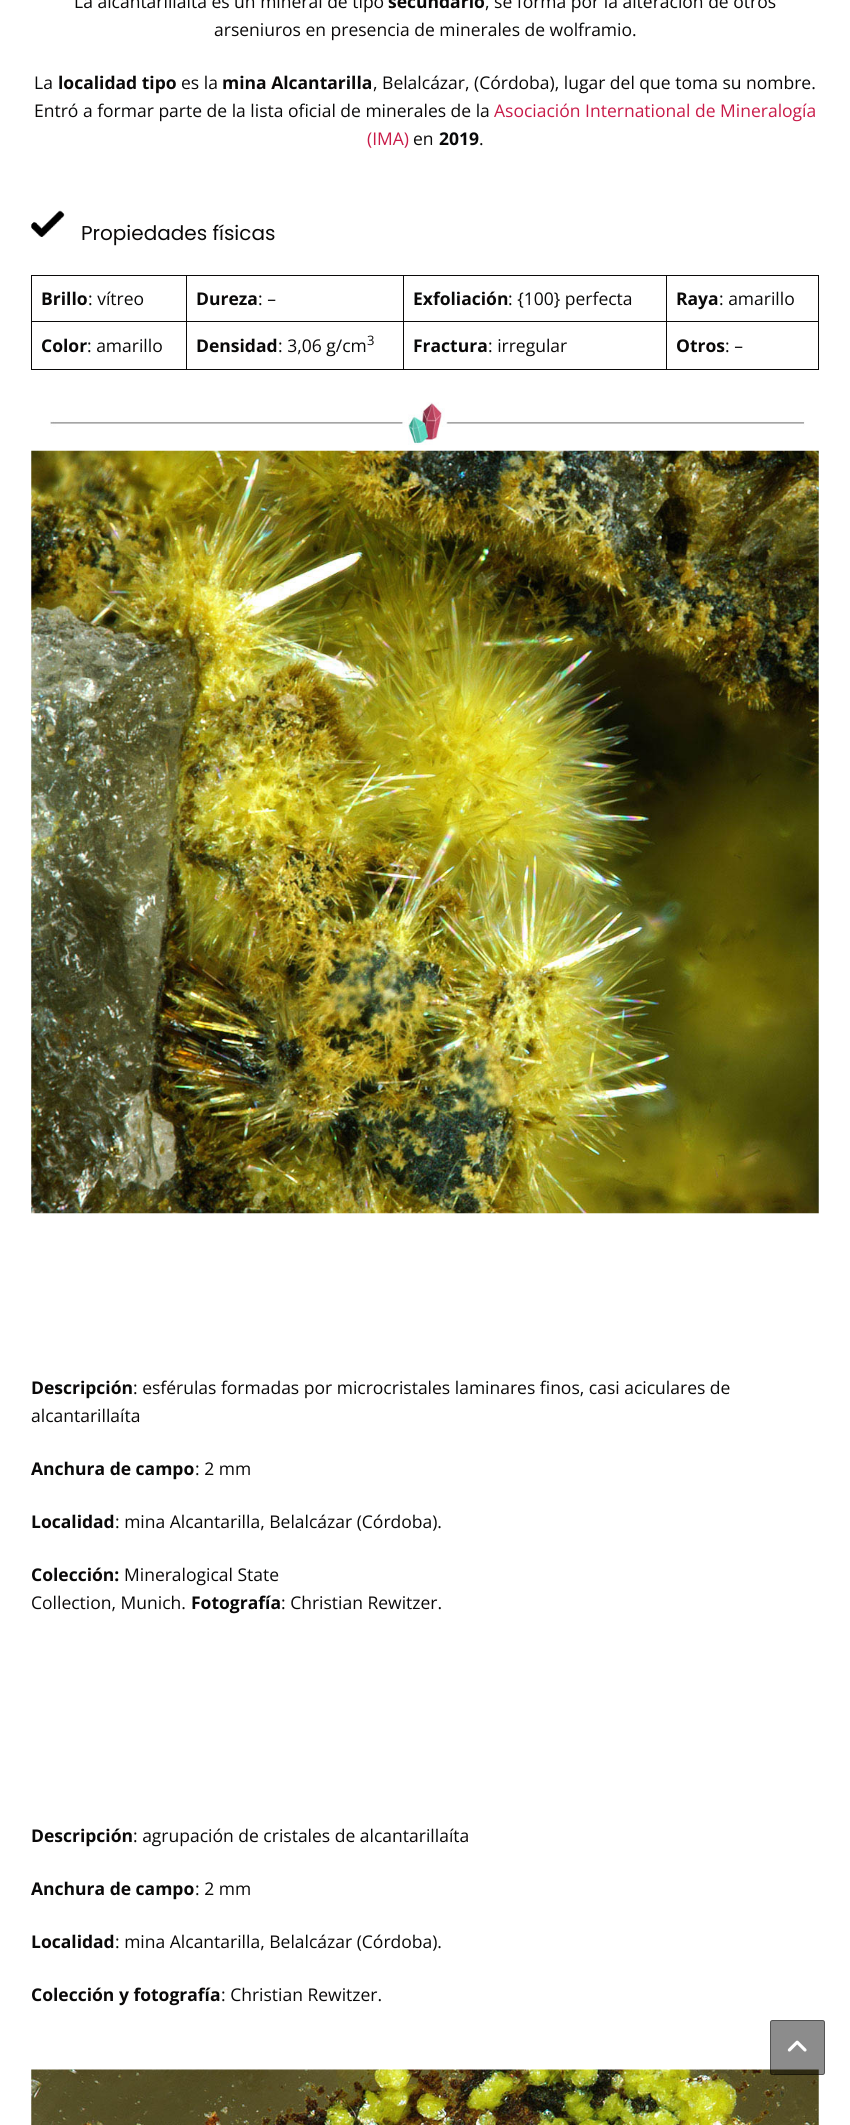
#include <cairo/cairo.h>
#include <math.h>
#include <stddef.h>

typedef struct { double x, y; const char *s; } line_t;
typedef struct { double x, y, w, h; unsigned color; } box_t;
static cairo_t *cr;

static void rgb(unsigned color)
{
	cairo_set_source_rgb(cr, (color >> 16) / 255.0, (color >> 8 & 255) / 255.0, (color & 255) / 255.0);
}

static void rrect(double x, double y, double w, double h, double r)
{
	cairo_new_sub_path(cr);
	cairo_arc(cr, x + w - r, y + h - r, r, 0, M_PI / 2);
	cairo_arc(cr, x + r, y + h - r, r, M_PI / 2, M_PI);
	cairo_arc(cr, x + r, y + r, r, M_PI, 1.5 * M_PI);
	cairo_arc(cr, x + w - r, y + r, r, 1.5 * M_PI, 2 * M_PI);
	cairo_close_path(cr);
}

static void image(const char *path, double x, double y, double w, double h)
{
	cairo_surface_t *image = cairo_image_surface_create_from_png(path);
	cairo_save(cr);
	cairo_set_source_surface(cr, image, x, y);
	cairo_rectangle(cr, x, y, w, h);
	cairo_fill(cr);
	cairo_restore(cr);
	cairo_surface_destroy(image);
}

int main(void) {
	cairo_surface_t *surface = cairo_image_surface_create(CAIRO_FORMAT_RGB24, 850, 2125);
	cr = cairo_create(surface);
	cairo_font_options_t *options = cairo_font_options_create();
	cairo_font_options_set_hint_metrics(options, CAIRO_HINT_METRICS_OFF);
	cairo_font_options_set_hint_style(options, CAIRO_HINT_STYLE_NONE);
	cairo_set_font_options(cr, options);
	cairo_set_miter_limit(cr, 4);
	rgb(0xffffff);
	cairo_paint(cr);
	image("img/1.png", 31, 210, 34, 27);
	{
		static const box_t items[] = {
			{666, 275, 153, 1, 0x0a0909},
			{666, 321, 153, 1, 0x0a0909},
			{818, 321, 1, 49, 0x0a0909},
			{666, 369, 153, 1, 0x0a0909},
			{666, 321, 1, 49, 0x0a0909},
			{403, 321, 265, 1, 0x0a0909},
			{666, 275, 1, 48, 0x0a0909},
			{403, 275, 265, 1, 0x0a0909},
			{403, 369, 265, 1, 0x0a0909},
			{403, 321, 1, 49, 0x0a0909},
			{186, 321, 218, 1, 0x0a0909},
			{403, 275, 1, 48, 0x0a0909},
			{186, 275, 218, 1, 0x0a0909},
			{186, 369, 218, 1, 0x0a0909},
			{186, 321, 1, 49, 0x0a0909},
			{31, 321, 157, 1, 0x0a0909},
			{186, 275, 1, 48, 0x0a0909},
			{31, 275, 157, 1, 0x0a0909},
			{31, 369, 157, 1, 0x0a0909},
			{31, 321, 1, 49, 0x0a0909},
			{31, 275, 1, 48, 0x0a0909},
			{818, 275, 1, 48, 0x0a0909},
		};
		for (size_t i = 0; i < sizeof items / sizeof *items; i++) {
			rgb(items[i].color);
			cairo_rectangle(cr, items[i].x, items[i].y, items[i].w, items[i].h);
			cairo_fill(cr);
		}
	}
	image("img/2.png", 50, 402, 755, 43);
	image("img/3.png", 31, 450, 788, 764);
	image("img/4.png", 31, 2069, 788, 56);
	cairo_set_source_rgba(cr, 0, 0, 0, 0.45);
	rrect(770, 2020, 55, 55, 2.5);
	cairo_fill(cr);
	rrect(770.5, 2020.5, 54, 54, 2);
	cairo_set_source_rgba(cr, 0, 0, 0, 0.4);
	cairo_set_line_width(cr, 1);
	cairo_stroke(cr);
	image("img/5.png", 787, 2040, 20, 12);
	cairo_select_font_face(cr, "Open Sans", CAIRO_FONT_SLANT_NORMAL, CAIRO_FONT_WEIGHT_NORMAL);
	cairo_set_font_size(cr, 17.5);
	rgb(0x0a0909);
	cairo_move_to(cr, 74, 8);
	cairo_show_text(cr, "La alcantarillaíta es un mineral de tipo");
	cairo_select_font_face(cr, "Open Sans", CAIRO_FONT_SLANT_NORMAL, CAIRO_FONT_WEIGHT_BOLD);
	cairo_move_to(cr, 388, 8);
	cairo_show_text(cr, "secundario");
	cairo_select_font_face(cr, "Open Sans", CAIRO_FONT_SLANT_NORMAL, CAIRO_FONT_WEIGHT_NORMAL);
	{
		static const line_t items[] = {
			{485, 8, ", se forma por la alteración de otros"},
			{214, 36, "arseniuros en presencia de minerales de wolframio."},
			{34, 89, "La"},
		};
		for (size_t i = 0; i < sizeof items / sizeof *items; i++) {
			cairo_move_to(cr, items[i].x, items[i].y);
			cairo_show_text(cr, items[i].s);
		}
	}
	cairo_select_font_face(cr, "Open Sans", CAIRO_FONT_SLANT_NORMAL, CAIRO_FONT_WEIGHT_BOLD);
	cairo_move_to(cr, 58, 89);
	cairo_show_text(cr, "localidad tipo");
	cairo_select_font_face(cr, "Open Sans", CAIRO_FONT_SLANT_NORMAL, CAIRO_FONT_WEIGHT_NORMAL);
	cairo_move_to(cr, 181, 89);
	cairo_show_text(cr, "es la");
	cairo_select_font_face(cr, "Open Sans", CAIRO_FONT_SLANT_NORMAL, CAIRO_FONT_WEIGHT_BOLD);
	cairo_move_to(cr, 222, 89);
	cairo_show_text(cr, "mina Alcantarilla");
	cairo_select_font_face(cr, "Open Sans", CAIRO_FONT_SLANT_NORMAL, CAIRO_FONT_WEIGHT_NORMAL);
	cairo_move_to(cr, 373, 89);
	cairo_show_text(cr, ", Belalcázar, (Córdoba), lugar del que toma su nombre.");
	cairo_move_to(cr, 34, 117);
	cairo_show_text(cr, "Entró a formar parte de la lista oficial de minerales de la");
	rgb(0xc91a48);
	cairo_move_to(cr, 494, 117);
	cairo_show_text(cr, "Asociación International de Mineralogía");
	cairo_move_to(cr, 367, 145);
	cairo_show_text(cr, "(IMA)");
	rgb(0x0a0909);
	cairo_move_to(cr, 413, 145);
	cairo_show_text(cr, "en");
	cairo_select_font_face(cr, "Open Sans", CAIRO_FONT_SLANT_NORMAL, CAIRO_FONT_WEIGHT_BOLD);
	cairo_move_to(cr, 439, 145);
	cairo_show_text(cr, "2019");
	cairo_select_font_face(cr, "Open Sans", CAIRO_FONT_SLANT_NORMAL, CAIRO_FONT_WEIGHT_NORMAL);
	cairo_move_to(cr, 479, 145);
	cairo_show_text(cr, ".");
	cairo_select_font_face(cr, "Poppins", CAIRO_FONT_SLANT_NORMAL, CAIRO_FONT_WEIGHT_NORMAL);
	cairo_set_font_size(cr, 20);
	cairo_move_to(cr, 81, 240);
	cairo_show_text(cr, "Propiedades físicas");
	cairo_select_font_face(cr, "Open Sans", CAIRO_FONT_SLANT_NORMAL, CAIRO_FONT_WEIGHT_BOLD);
	cairo_set_font_size(cr, 17.5);
	cairo_move_to(cr, 41, 305);
	cairo_show_text(cr, "Brillo");
	cairo_select_font_face(cr, "Open Sans", CAIRO_FONT_SLANT_NORMAL, CAIRO_FONT_WEIGHT_NORMAL);
	cairo_move_to(cr, 88, 305);
	cairo_show_text(cr, ": vítreo");
	cairo_select_font_face(cr, "Open Sans", CAIRO_FONT_SLANT_NORMAL, CAIRO_FONT_WEIGHT_BOLD);
	cairo_move_to(cr, 196, 305);
	cairo_show_text(cr, "Dureza");
	cairo_select_font_face(cr, "Open Sans", CAIRO_FONT_SLANT_NORMAL, CAIRO_FONT_WEIGHT_NORMAL);
	cairo_move_to(cr, 258, 305);
	cairo_show_text(cr, ": –");
	cairo_select_font_face(cr, "Open Sans", CAIRO_FONT_SLANT_NORMAL, CAIRO_FONT_WEIGHT_BOLD);
	cairo_move_to(cr, 413, 305);
	cairo_show_text(cr, "Exfoliación");
	cairo_select_font_face(cr, "Open Sans", CAIRO_FONT_SLANT_NORMAL, CAIRO_FONT_WEIGHT_NORMAL);
	cairo_move_to(cr, 508, 305);
	cairo_show_text(cr, ": {100} perfecta");
	cairo_select_font_face(cr, "Open Sans", CAIRO_FONT_SLANT_NORMAL, CAIRO_FONT_WEIGHT_BOLD);
	cairo_move_to(cr, 676, 305);
	cairo_show_text(cr, "Raya");
	cairo_select_font_face(cr, "Open Sans", CAIRO_FONT_SLANT_NORMAL, CAIRO_FONT_WEIGHT_NORMAL);
	cairo_move_to(cr, 719, 305);
	cairo_show_text(cr, ": amarillo");
	cairo_select_font_face(cr, "Open Sans", CAIRO_FONT_SLANT_NORMAL, CAIRO_FONT_WEIGHT_BOLD);
	cairo_move_to(cr, 41, 352);
	cairo_show_text(cr, "Color");
	cairo_select_font_face(cr, "Open Sans", CAIRO_FONT_SLANT_NORMAL, CAIRO_FONT_WEIGHT_NORMAL);
	cairo_move_to(cr, 87, 352);
	cairo_show_text(cr, ": amarillo");
	cairo_select_font_face(cr, "Open Sans", CAIRO_FONT_SLANT_NORMAL, CAIRO_FONT_WEIGHT_BOLD);
	cairo_move_to(cr, 196, 352);
	cairo_show_text(cr, "Densidad");
	cairo_select_font_face(cr, "Open Sans", CAIRO_FONT_SLANT_NORMAL, CAIRO_FONT_WEIGHT_NORMAL);
	cairo_move_to(cr, 278, 352);
	cairo_show_text(cr, ": 3,06 g/cm");
	cairo_set_font_size(cr, 13);
	cairo_move_to(cr, 367, 345);
	cairo_show_text(cr, "3");
	cairo_select_font_face(cr, "Open Sans", CAIRO_FONT_SLANT_NORMAL, CAIRO_FONT_WEIGHT_BOLD);
	cairo_set_font_size(cr, 17.5);
	cairo_move_to(cr, 413, 352);
	cairo_show_text(cr, "Fractura");
	cairo_select_font_face(cr, "Open Sans", CAIRO_FONT_SLANT_NORMAL, CAIRO_FONT_WEIGHT_NORMAL);
	cairo_move_to(cr, 488, 352);
	cairo_show_text(cr, ": irregular");
	cairo_select_font_face(cr, "Open Sans", CAIRO_FONT_SLANT_NORMAL, CAIRO_FONT_WEIGHT_BOLD);
	cairo_move_to(cr, 676, 352);
	cairo_show_text(cr, "Otros");
	cairo_select_font_face(cr, "Open Sans", CAIRO_FONT_SLANT_NORMAL, CAIRO_FONT_WEIGHT_NORMAL);
	cairo_move_to(cr, 725, 352);
	cairo_show_text(cr, ": –");
	cairo_select_font_face(cr, "Open Sans", CAIRO_FONT_SLANT_NORMAL, CAIRO_FONT_WEIGHT_BOLD);
	cairo_move_to(cr, 31, 1394);
	cairo_show_text(cr, "Descripción");
	cairo_select_font_face(cr, "Open Sans", CAIRO_FONT_SLANT_NORMAL, CAIRO_FONT_WEIGHT_NORMAL);
	cairo_move_to(cr, 133, 1394);
	cairo_show_text(cr, ": esférulas formadas por microcristales laminares finos, casi aciculares de");
	cairo_move_to(cr, 31, 1422);
	cairo_show_text(cr, "alcantarillaíta");
	cairo_select_font_face(cr, "Open Sans", CAIRO_FONT_SLANT_NORMAL, CAIRO_FONT_WEIGHT_BOLD);
	cairo_move_to(cr, 31, 1475);
	cairo_show_text(cr, "Anchura de campo");
	cairo_select_font_face(cr, "Open Sans", CAIRO_FONT_SLANT_NORMAL, CAIRO_FONT_WEIGHT_NORMAL);
	cairo_move_to(cr, 195, 1475);
	cairo_show_text(cr, ": 2 mm");
	cairo_select_font_face(cr, "Open Sans", CAIRO_FONT_SLANT_NORMAL, CAIRO_FONT_WEIGHT_BOLD);
	cairo_move_to(cr, 31, 1528);
	cairo_show_text(cr, "Localidad");
	cairo_select_font_face(cr, "Open Sans", CAIRO_FONT_SLANT_NORMAL, CAIRO_FONT_WEIGHT_NORMAL);
	cairo_move_to(cr, 115, 1528);
	cairo_show_text(cr, ": mina Alcantarilla, Belalcázar (Córdoba).");
	cairo_select_font_face(cr, "Open Sans", CAIRO_FONT_SLANT_NORMAL, CAIRO_FONT_WEIGHT_BOLD);
	cairo_move_to(cr, 31, 1581);
	cairo_show_text(cr, "Colección:");
	cairo_select_font_face(cr, "Open Sans", CAIRO_FONT_SLANT_NORMAL, CAIRO_FONT_WEIGHT_NORMAL);
	cairo_move_to(cr, 124, 1581);
	cairo_show_text(cr, "Mineralogical State");
	cairo_move_to(cr, 31, 1609);
	cairo_show_text(cr, "Collection, Munich.");
	cairo_select_font_face(cr, "Open Sans", CAIRO_FONT_SLANT_NORMAL, CAIRO_FONT_WEIGHT_BOLD);
	cairo_move_to(cr, 191, 1609);
	cairo_show_text(cr, "Fotografía");
	cairo_select_font_face(cr, "Open Sans", CAIRO_FONT_SLANT_NORMAL, CAIRO_FONT_WEIGHT_NORMAL);
	cairo_move_to(cr, 281, 1609);
	cairo_show_text(cr, ": Christian Rewitzer.");
	cairo_select_font_face(cr, "Open Sans", CAIRO_FONT_SLANT_NORMAL, CAIRO_FONT_WEIGHT_BOLD);
	cairo_move_to(cr, 31, 1842);
	cairo_show_text(cr, "Descripción");
	cairo_select_font_face(cr, "Open Sans", CAIRO_FONT_SLANT_NORMAL, CAIRO_FONT_WEIGHT_NORMAL);
	cairo_move_to(cr, 133, 1842);
	cairo_show_text(cr, ": agrupación de cristales de alcantarillaíta");
	cairo_select_font_face(cr, "Open Sans", CAIRO_FONT_SLANT_NORMAL, CAIRO_FONT_WEIGHT_BOLD);
	cairo_move_to(cr, 31, 1895);
	cairo_show_text(cr, "Anchura de campo");
	cairo_select_font_face(cr, "Open Sans", CAIRO_FONT_SLANT_NORMAL, CAIRO_FONT_WEIGHT_NORMAL);
	cairo_move_to(cr, 195, 1895);
	cairo_show_text(cr, ": 2 mm");
	cairo_select_font_face(cr, "Open Sans", CAIRO_FONT_SLANT_NORMAL, CAIRO_FONT_WEIGHT_BOLD);
	cairo_move_to(cr, 31, 1948);
	cairo_show_text(cr, "Localidad");
	cairo_select_font_face(cr, "Open Sans", CAIRO_FONT_SLANT_NORMAL, CAIRO_FONT_WEIGHT_NORMAL);
	cairo_move_to(cr, 115, 1948);
	cairo_show_text(cr, ": mina Alcantarilla, Belalcázar (Córdoba).");
	cairo_select_font_face(cr, "Open Sans", CAIRO_FONT_SLANT_NORMAL, CAIRO_FONT_WEIGHT_BOLD);
	cairo_move_to(cr, 31, 2001);
	cairo_show_text(cr, "Colección y fotografía");
	cairo_select_font_face(cr, "Open Sans", CAIRO_FONT_SLANT_NORMAL, CAIRO_FONT_WEIGHT_NORMAL);
	cairo_move_to(cr, 221, 2001);
	cairo_show_text(cr, ": Christian Rewitzer.");
	cairo_surface_write_to_png(surface, "page.png");
	cairo_font_options_destroy(options);
	cairo_destroy(cr);
	cairo_surface_destroy(surface);
	return 0;
}
